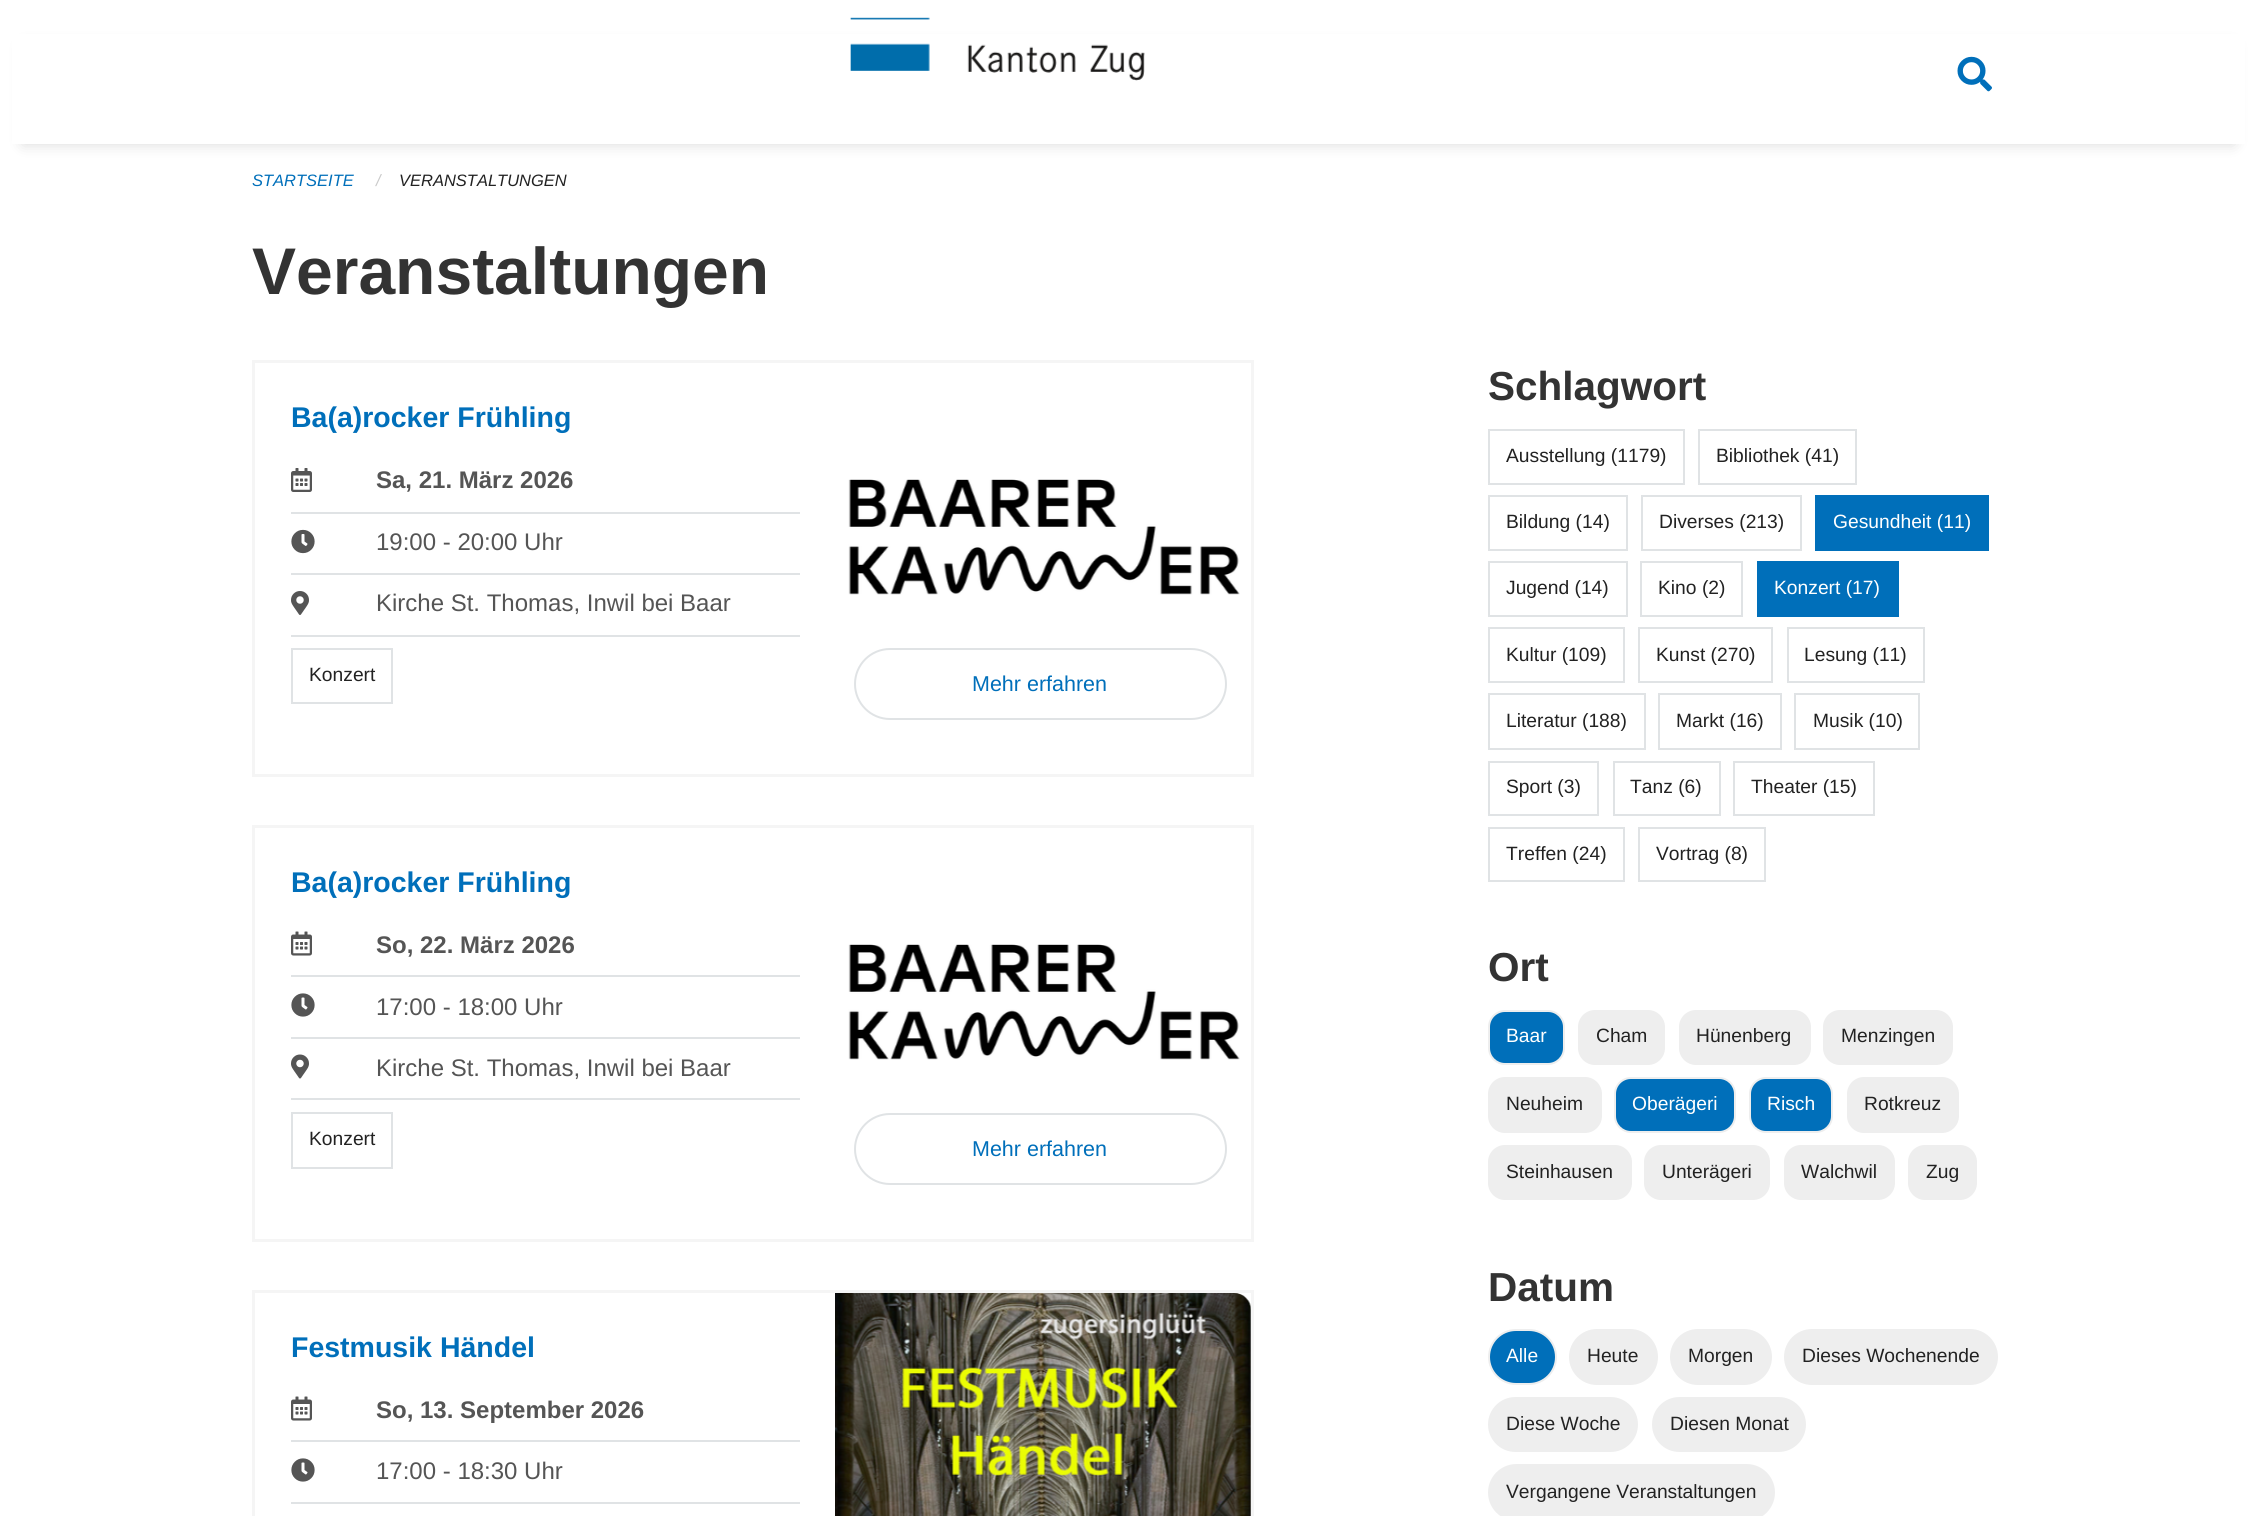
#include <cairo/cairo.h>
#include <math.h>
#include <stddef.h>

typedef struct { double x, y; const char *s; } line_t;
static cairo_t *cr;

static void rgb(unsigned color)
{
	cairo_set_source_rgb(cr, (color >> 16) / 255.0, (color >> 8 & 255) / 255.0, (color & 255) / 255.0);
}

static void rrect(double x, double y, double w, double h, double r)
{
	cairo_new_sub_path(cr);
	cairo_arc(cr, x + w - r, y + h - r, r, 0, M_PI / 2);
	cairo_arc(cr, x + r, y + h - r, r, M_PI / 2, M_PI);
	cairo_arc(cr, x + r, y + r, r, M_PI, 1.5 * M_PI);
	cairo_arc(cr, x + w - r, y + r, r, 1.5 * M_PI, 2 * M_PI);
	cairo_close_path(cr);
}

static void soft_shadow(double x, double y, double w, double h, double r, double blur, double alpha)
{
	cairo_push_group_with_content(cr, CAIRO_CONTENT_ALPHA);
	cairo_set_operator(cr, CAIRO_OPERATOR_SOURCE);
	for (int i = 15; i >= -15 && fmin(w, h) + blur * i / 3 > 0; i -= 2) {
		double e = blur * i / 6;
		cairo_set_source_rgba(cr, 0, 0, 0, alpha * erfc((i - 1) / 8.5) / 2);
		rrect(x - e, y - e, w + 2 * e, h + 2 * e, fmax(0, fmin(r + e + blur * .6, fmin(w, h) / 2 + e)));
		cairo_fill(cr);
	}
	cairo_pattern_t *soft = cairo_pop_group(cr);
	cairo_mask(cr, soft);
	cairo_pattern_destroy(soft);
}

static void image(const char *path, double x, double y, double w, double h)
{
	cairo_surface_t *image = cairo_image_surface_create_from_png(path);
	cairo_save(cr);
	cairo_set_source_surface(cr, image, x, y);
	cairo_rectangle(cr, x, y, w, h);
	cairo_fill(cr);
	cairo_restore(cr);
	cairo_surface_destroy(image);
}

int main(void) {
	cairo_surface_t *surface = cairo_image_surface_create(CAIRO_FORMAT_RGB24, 2256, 1516);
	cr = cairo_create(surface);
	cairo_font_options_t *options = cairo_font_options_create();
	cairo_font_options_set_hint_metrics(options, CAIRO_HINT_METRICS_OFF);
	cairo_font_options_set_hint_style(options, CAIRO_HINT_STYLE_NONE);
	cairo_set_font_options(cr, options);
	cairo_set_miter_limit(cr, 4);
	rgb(0xffffff);
	cairo_paint(cr);
	rgb(0x000000);
	soft_shadow(23, 45, 2211, 99, 0, 7.5, 0.15);
	rgb(0xffffff);
	cairo_rectangle(cr, 12, 34, 2233, 110);
	cairo_fill(cr);
	image("img/1.png", 850, 17, 295, 64);
	image("img/2.png", 1957, 56, 35, 36);
	cairo_rectangle(cr, 253.5, 361.5, 999, 414);
	cairo_set_source_rgba(cr, 0, 0, 0, 0.04);
	cairo_set_line_width(cr, 3);
	cairo_stroke(cr);
	image("img/3.png", 291, 468, 21, 24);
	rgb(0xe0e3e5);
	cairo_rectangle(cr, 291, 512, 509, 2);
	cairo_fill(cr);
	image("img/4.png", 291, 529, 24, 25);
	cairo_rectangle(cr, 291, 573, 509, 2);
	cairo_fill(cr);
	image("img/5.png", 291, 591, 18, 24);
	cairo_rectangle(cr, 291, 635, 509, 2);
	cairo_fill(cr);
	cairo_rectangle(cr, 292, 649, 100, 54);
	cairo_set_line_width(cr, 2);
	cairo_stroke(cr);
	image("img/6.png", 848, 479, 392, 116);
	rrect(855, 649, 371, 70, 35);
	cairo_stroke(cr);
	cairo_rectangle(cr, 253.5, 826.5, 999, 414);
	cairo_set_source_rgba(cr, 0, 0, 0, 0.04);
	cairo_set_line_width(cr, 3);
	cairo_stroke(cr);
	image("img/7.png", 291, 931, 21, 25);
	rgb(0xe0e3e5);
	cairo_rectangle(cr, 291, 975, 509, 2);
	cairo_fill(cr);
	image("img/8.png", 291, 993, 24, 24);
	cairo_rectangle(cr, 291, 1037, 509, 2);
	cairo_fill(cr);
	image("img/9.png", 291, 1054, 18, 25);
	cairo_rectangle(cr, 291, 1098, 509, 2);
	cairo_fill(cr);
	cairo_rectangle(cr, 292, 1113, 100, 55);
	cairo_set_line_width(cr, 2);
	cairo_stroke(cr);
	image("img/6.png", 848, 944, 392, 116);
	rrect(855, 1114, 371, 70, 35);
	cairo_stroke(cr);
	cairo_rectangle(cr, 253.5, 1291.5, 999, 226);
	cairo_set_source_rgba(cr, 0, 0, 0, 0.04);
	cairo_set_line_width(cr, 3);
	cairo_stroke(cr);
	image("img/7.png", 291, 1396, 21, 25);
	rgb(0xe0e3e5);
	cairo_rectangle(cr, 291, 1440, 509, 2);
	cairo_fill(cr);
	image("img/8.png", 291, 1458, 24, 24);
	cairo_rectangle(cr, 291, 1502, 509, 2);
	cairo_fill(cr);
	image("img/10.png", 835, 1293, 416, 223);
	cairo_rectangle(cr, 1489, 430, 195, 54);
	cairo_set_line_width(cr, 2);
	cairo_stroke(cr);
	cairo_rectangle(cr, 1699, 430, 157, 54);
	cairo_stroke(cr);
	cairo_rectangle(cr, 1489, 496, 138, 54);
	cairo_stroke(cr);
	cairo_rectangle(cr, 1642, 496, 159, 54);
	cairo_stroke(cr);
	rgb(0x006fba);
	cairo_rectangle(cr, 1815, 495, 174, 56);
	cairo_fill(cr);
	cairo_rectangle(cr, 1489, 562, 138, 54);
	rgb(0xe0e3e5);
	cairo_stroke(cr);
	cairo_rectangle(cr, 1641, 562, 101, 54);
	cairo_stroke(cr);
	rgb(0x006fba);
	cairo_rectangle(cr, 1757, 561, 142, 56);
	cairo_fill(cr);
	cairo_rectangle(cr, 1489, 628, 135, 54);
	rgb(0xe0e3e5);
	cairo_stroke(cr);
	cairo_rectangle(cr, 1639, 628, 133, 54);
	cairo_stroke(cr);
	cairo_rectangle(cr, 1788, 628, 136, 54);
	cairo_stroke(cr);
	cairo_rectangle(cr, 1489, 694, 156, 55);
	cairo_stroke(cr);
	cairo_rectangle(cr, 1659, 694, 122, 55);
	cairo_stroke(cr);
	cairo_rectangle(cr, 1795, 694, 124, 55);
	cairo_stroke(cr);
	cairo_rectangle(cr, 1489, 762, 109, 53);
	cairo_stroke(cr);
	cairo_rectangle(cr, 1614, 762, 106, 53);
	cairo_stroke(cr);
	cairo_rectangle(cr, 1734, 762, 140, 53);
	cairo_stroke(cr);
	cairo_rectangle(cr, 1489, 828, 135, 53);
	cairo_stroke(cr);
	cairo_rectangle(cr, 1639, 828, 126, 53);
	cairo_stroke(cr);
	rgb(0x006fba);
	rrect(1489, 1011, 75, 53, 16);
	cairo_fill_preserve(cr);
	rgb(0xeeeeee);
	cairo_stroke(cr);
	rrect(1579, 1011, 85, 53, 16);
	cairo_fill_preserve(cr);
	cairo_stroke(cr);
	rrect(1680, 1011, 130, 53, 16);
	cairo_fill_preserve(cr);
	cairo_stroke(cr);
	rrect(1824, 1011, 128, 53, 16);
	cairo_fill_preserve(cr);
	cairo_stroke(cr);
	rrect(1489, 1078, 112, 54, 16);
	cairo_fill_preserve(cr);
	cairo_stroke(cr);
	rgb(0x006fba);
	rrect(1615, 1078, 120, 54, 16);
	cairo_fill_preserve(cr);
	rgb(0xeeeeee);
	cairo_stroke(cr);
	rgb(0x006fba);
	rrect(1750, 1078, 82, 54, 16);
	cairo_fill_preserve(cr);
	rgb(0xeeeeee);
	cairo_stroke(cr);
	rrect(1848, 1078, 110, 54, 16);
	cairo_fill_preserve(cr);
	cairo_stroke(cr);
	rrect(1489, 1146, 142, 53, 16);
	cairo_fill_preserve(cr);
	cairo_stroke(cr);
	rrect(1645, 1146, 124, 53, 16);
	cairo_fill_preserve(cr);
	cairo_stroke(cr);
	rrect(1785, 1146, 109, 53, 16);
	cairo_fill_preserve(cr);
	cairo_stroke(cr);
	rrect(1909, 1146, 67, 53, 16);
	cairo_fill_preserve(cr);
	cairo_stroke(cr);
	rgb(0x006fba);
	rrect(1489, 1330, 67, 54, 27);
	cairo_fill_preserve(cr);
	rgb(0xeeeeee);
	cairo_stroke(cr);
	rrect(1570, 1330, 87, 54, 27);
	cairo_fill_preserve(cr);
	cairo_stroke(cr);
	rrect(1671, 1330, 100, 54, 27);
	cairo_fill_preserve(cr);
	cairo_stroke(cr);
	rrect(1785, 1330, 212, 54, 27);
	cairo_fill_preserve(cr);
	cairo_stroke(cr);
	rrect(1489, 1398, 148, 53, 26.5);
	cairo_fill_preserve(cr);
	cairo_stroke(cr);
	rrect(1653, 1398, 152, 53, 26.5);
	cairo_fill_preserve(cr);
	cairo_stroke(cr);
	rrect(1489, 1465, 285, 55, 27.5);
	cairo_fill_preserve(cr);
	cairo_stroke(cr);
	cairo_select_font_face(cr, "Liberation Sans", CAIRO_FONT_SLANT_ITALIC, CAIRO_FONT_WEIGHT_NORMAL);
	cairo_set_font_size(cr, 16.5);
	rgb(0x006fba);
	cairo_move_to(cr, 252, 186);
	cairo_show_text(cr, "STARTSEITE");
	rgb(0xcacaca);
	cairo_move_to(cr, 376, 186);
	cairo_show_text(cr, "/");
	rgb(0x222222);
	cairo_move_to(cr, 399, 186);
	cairo_show_text(cr, "VERANSTALTUNGEN");
	cairo_select_font_face(cr, "Liberation Sans", CAIRO_FONT_SLANT_NORMAL, CAIRO_FONT_WEIGHT_BOLD);
	cairo_set_font_size(cr, 66);
	rgb(0x333333);
	cairo_move_to(cr, 252, 294);
	cairo_show_text(cr, "Veranstaltungen");
	cairo_set_font_size(cr, 28.5);
	rgb(0x006fba);
	cairo_move_to(cr, 291, 427);
	cairo_show_text(cr, "Ba(a)rocker Frühling");
	cairo_set_font_size(cr, 24);
	rgb(0x555555);
	cairo_move_to(cr, 376, 488);
	cairo_show_text(cr, "Sa, 21. März 2026");
	cairo_select_font_face(cr, "Liberation Sans", CAIRO_FONT_SLANT_NORMAL, CAIRO_FONT_WEIGHT_NORMAL);
	cairo_move_to(cr, 376, 550);
	cairo_show_text(cr, "19:00 - 20:00 Uhr");
	cairo_move_to(cr, 376, 611);
	cairo_show_text(cr, "Kirche St. Thomas, Inwil bei Baar");
	cairo_set_font_size(cr, 19.25);
	rgb(0x222222);
	cairo_move_to(cr, 309, 681);
	cairo_show_text(cr, "Konzert");
	cairo_set_font_size(cr, 21.5);
	rgb(0x006fba);
	cairo_move_to(cr, 972, 691);
	cairo_show_text(cr, "Mehr erfahren");
	cairo_select_font_face(cr, "Liberation Sans", CAIRO_FONT_SLANT_NORMAL, CAIRO_FONT_WEIGHT_BOLD);
	cairo_set_font_size(cr, 28.5);
	cairo_move_to(cr, 291, 892);
	cairo_show_text(cr, "Ba(a)rocker Frühling");
	cairo_set_font_size(cr, 24);
	rgb(0x555555);
	cairo_move_to(cr, 376, 953);
	cairo_show_text(cr, "So, 22. März 2026");
	cairo_select_font_face(cr, "Liberation Sans", CAIRO_FONT_SLANT_NORMAL, CAIRO_FONT_WEIGHT_NORMAL);
	cairo_move_to(cr, 376, 1015);
	cairo_show_text(cr, "17:00 - 18:00 Uhr");
	cairo_move_to(cr, 376, 1076);
	cairo_show_text(cr, "Kirche St. Thomas, Inwil bei Baar");
	cairo_set_font_size(cr, 19.25);
	rgb(0x222222);
	cairo_move_to(cr, 309, 1145);
	cairo_show_text(cr, "Konzert");
	cairo_set_font_size(cr, 21.5);
	rgb(0x006fba);
	cairo_move_to(cr, 972, 1156);
	cairo_show_text(cr, "Mehr erfahren");
	cairo_select_font_face(cr, "Liberation Sans", CAIRO_FONT_SLANT_NORMAL, CAIRO_FONT_WEIGHT_BOLD);
	cairo_set_font_size(cr, 28.5);
	cairo_move_to(cr, 291, 1357);
	cairo_show_text(cr, "Festmusik Händel");
	cairo_set_font_size(cr, 24);
	rgb(0x555555);
	cairo_move_to(cr, 376, 1418);
	cairo_show_text(cr, "So, 13. September 2026");
	cairo_select_font_face(cr, "Liberation Sans", CAIRO_FONT_SLANT_NORMAL, CAIRO_FONT_WEIGHT_NORMAL);
	cairo_move_to(cr, 376, 1479);
	cairo_show_text(cr, "17:00 - 18:30 Uhr");
	cairo_select_font_face(cr, "Liberation Sans", CAIRO_FONT_SLANT_NORMAL, CAIRO_FONT_WEIGHT_BOLD);
	cairo_set_font_size(cr, 40.5);
	rgb(0x333333);
	cairo_move_to(cr, 1488, 400);
	cairo_show_text(cr, "Schlagwort");
	cairo_select_font_face(cr, "Liberation Sans", CAIRO_FONT_SLANT_NORMAL, CAIRO_FONT_WEIGHT_NORMAL);
	cairo_set_font_size(cr, 19.25);
	rgb(0x222222);
	{
		static const line_t items[] = {
			{1506, 462, "Ausstellung (1179)"},
			{1716, 462, "Bibliothek (41)"},
			{1506, 528, "Bildung (14)"},
			{1659, 528, "Diverses (213)"},
		};
		for (size_t i = 0; i < sizeof items / sizeof *items; i++) {
			cairo_move_to(cr, items[i].x, items[i].y);
			cairo_show_text(cr, items[i].s);
		}
	}
	rgb(0xffffff);
	cairo_move_to(cr, 1833, 528);
	cairo_show_text(cr, "Gesundheit (11)");
	rgb(0x222222);
	cairo_move_to(cr, 1506, 594);
	cairo_show_text(cr, "Jugend (14)");
	cairo_move_to(cr, 1658, 594);
	cairo_show_text(cr, "Kino (2)");
	rgb(0xffffff);
	cairo_move_to(cr, 1774, 594);
	cairo_show_text(cr, "Konzert (17)");
	rgb(0x222222);
	{
		static const line_t items[] = {
			{1506, 661, "Kultur (109)"},
			{1656, 661, "Kunst (270)"},
			{1804, 661, "Lesung (11)"},
			{1506, 727, "Literatur (188)"},
			{1676, 727, "Markt (16)"},
			{1813, 727, "Musik (10)"},
			{1506, 793, "Sport (3)"},
			{1630, 793, "Tanz (6)"},
			{1751, 793, "Theater (15)"},
			{1506, 860, "Treffen (24)"},
			{1656, 860, "Vortrag (8)"},
		};
		for (size_t i = 0; i < sizeof items / sizeof *items; i++) {
			cairo_move_to(cr, items[i].x, items[i].y);
			cairo_show_text(cr, items[i].s);
		}
	}
	cairo_select_font_face(cr, "Liberation Sans", CAIRO_FONT_SLANT_NORMAL, CAIRO_FONT_WEIGHT_BOLD);
	cairo_set_font_size(cr, 40.5);
	rgb(0x333333);
	cairo_move_to(cr, 1488, 981);
	cairo_show_text(cr, "Ort");
	cairo_select_font_face(cr, "Liberation Sans", CAIRO_FONT_SLANT_NORMAL, CAIRO_FONT_WEIGHT_NORMAL);
	cairo_set_font_size(cr, 19.25);
	rgb(0xffffff);
	cairo_move_to(cr, 1506, 1042);
	cairo_show_text(cr, "Baar");
	rgb(0x222222);
	{
		static const line_t items[] = {
			{1596, 1042, "Cham"},
			{1696, 1042, "Hünenberg"},
			{1841, 1042, "Menzingen"},
			{1506, 1110, "Neuheim"},
		};
		for (size_t i = 0; i < sizeof items / sizeof *items; i++) {
			cairo_move_to(cr, items[i].x, items[i].y);
			cairo_show_text(cr, items[i].s);
		}
	}
	rgb(0xffffff);
	cairo_move_to(cr, 1632, 1110);
	cairo_show_text(cr, "Oberägeri");
	cairo_move_to(cr, 1767, 1110);
	cairo_show_text(cr, "Risch");
	rgb(0x222222);
	{
		static const line_t items[] = {
			{1864, 1110, "Rotkreuz"},
			{1506, 1178, "Steinhausen"},
			{1662, 1178, "Unterägeri"},
			{1801, 1178, "Walchwil"},
			{1926, 1178, "Zug"},
		};
		for (size_t i = 0; i < sizeof items / sizeof *items; i++) {
			cairo_move_to(cr, items[i].x, items[i].y);
			cairo_show_text(cr, items[i].s);
		}
	}
	cairo_select_font_face(cr, "Liberation Sans", CAIRO_FONT_SLANT_NORMAL, CAIRO_FONT_WEIGHT_BOLD);
	cairo_set_font_size(cr, 40.5);
	rgb(0x333333);
	cairo_move_to(cr, 1488, 1301);
	cairo_show_text(cr, "Datum");
	cairo_select_font_face(cr, "Liberation Sans", CAIRO_FONT_SLANT_NORMAL, CAIRO_FONT_WEIGHT_NORMAL);
	cairo_set_font_size(cr, 19.25);
	rgb(0xffffff);
	cairo_move_to(cr, 1506, 1362);
	cairo_show_text(cr, "Alle");
	rgb(0x222222);
	{
		static const line_t items[] = {
			{1587, 1362, "Heute"},
			{1688, 1362, "Morgen"},
			{1802, 1362, "Dieses Wochenende"},
			{1506, 1430, "Diese Woche"},
			{1670, 1430, "Diesen Monat"},
			{1506, 1498, "Vergangene Veranstaltungen"},
		};
		for (size_t i = 0; i < sizeof items / sizeof *items; i++) {
			cairo_move_to(cr, items[i].x, items[i].y);
			cairo_show_text(cr, items[i].s);
		}
	}
	cairo_surface_write_to_png(surface, "page.png");
	cairo_font_options_destroy(options);
	cairo_destroy(cr);
	cairo_surface_destroy(surface);
	return 0;
}
